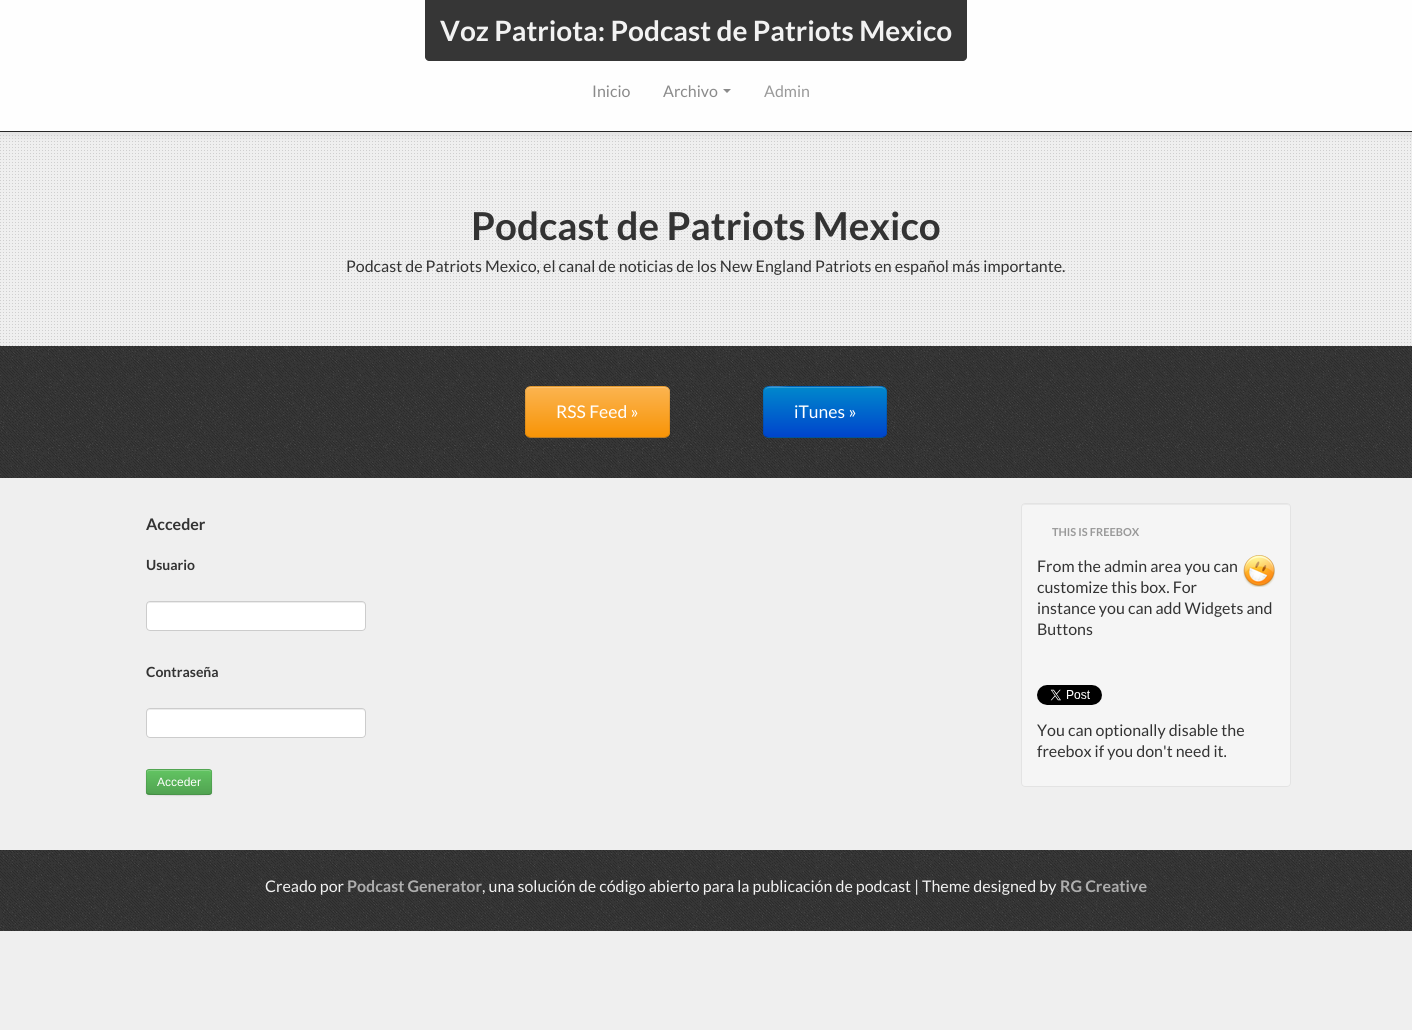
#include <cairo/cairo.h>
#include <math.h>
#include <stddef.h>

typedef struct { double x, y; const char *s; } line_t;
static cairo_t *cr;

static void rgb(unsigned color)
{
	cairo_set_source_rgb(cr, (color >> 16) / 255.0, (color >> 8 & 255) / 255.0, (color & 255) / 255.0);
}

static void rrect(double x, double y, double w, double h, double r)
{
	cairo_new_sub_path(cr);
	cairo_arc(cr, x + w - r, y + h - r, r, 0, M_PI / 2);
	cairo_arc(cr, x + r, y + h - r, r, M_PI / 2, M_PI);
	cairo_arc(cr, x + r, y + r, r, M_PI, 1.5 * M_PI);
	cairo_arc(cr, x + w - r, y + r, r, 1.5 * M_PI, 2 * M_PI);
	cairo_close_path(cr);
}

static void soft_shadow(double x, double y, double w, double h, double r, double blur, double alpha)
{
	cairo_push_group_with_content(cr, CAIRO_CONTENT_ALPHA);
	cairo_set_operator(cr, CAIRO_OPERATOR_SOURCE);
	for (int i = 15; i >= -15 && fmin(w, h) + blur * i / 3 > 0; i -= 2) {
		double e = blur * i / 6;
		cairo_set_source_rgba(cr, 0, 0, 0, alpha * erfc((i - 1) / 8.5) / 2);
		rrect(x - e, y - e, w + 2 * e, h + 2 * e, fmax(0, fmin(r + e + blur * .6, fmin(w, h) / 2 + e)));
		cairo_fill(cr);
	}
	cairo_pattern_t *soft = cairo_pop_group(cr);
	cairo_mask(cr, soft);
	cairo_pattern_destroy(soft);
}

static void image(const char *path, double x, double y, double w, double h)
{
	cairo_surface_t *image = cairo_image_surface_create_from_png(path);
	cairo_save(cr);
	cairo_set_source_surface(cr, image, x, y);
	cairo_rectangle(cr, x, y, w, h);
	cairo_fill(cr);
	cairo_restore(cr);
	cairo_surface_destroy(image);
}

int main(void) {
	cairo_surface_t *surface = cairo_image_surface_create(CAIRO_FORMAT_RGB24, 1412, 1030);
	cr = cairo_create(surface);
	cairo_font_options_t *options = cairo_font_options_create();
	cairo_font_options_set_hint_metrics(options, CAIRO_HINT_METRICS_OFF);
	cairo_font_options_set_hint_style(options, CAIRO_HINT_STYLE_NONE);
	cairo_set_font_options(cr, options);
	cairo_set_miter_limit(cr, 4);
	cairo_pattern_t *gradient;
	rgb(0xefefef);
	cairo_paint(cr);
	image("img/1.png", 0, 135, 1411, 211);
	rgb(0x000000);
	soft_shadow(0, 1, 1412, 132, 0, 5, 0.1);
	rgb(0xfefefe);
	cairo_rectangle(cr, 0, 0, 1412, 131);
	cairo_fill(cr);
	rgb(0x252525);
	cairo_rectangle(cr, 0, 131, 1412, 1);
	cairo_fill(cr);
	rgb(0x363636);
	cairo_new_path(cr);
	cairo_move_to(cr, 425, 0);
	cairo_line_to(cr, 967, 0);
	cairo_line_to(cr, 967, 57);
	cairo_curve_to(cr, 967, 59, 965, 61, 963, 61);
	cairo_line_to(cr, 429, 61);
	cairo_curve_to(cr, 427, 61, 425, 59, 425, 57);
	cairo_close_path(cr);
	cairo_fill(cr);
	rgb(0x8a8a8a);
	cairo_new_path(cr);
	cairo_move_to(cr, 723, 89);
	cairo_line_to(cr, 731, 89);
	cairo_line_to(cr, 727, 93);
	cairo_close_path(cr);
	cairo_fill(cr);
	rgb(0x363636);
	cairo_rectangle(cr, 0, 346, 1412, 132);
	cairo_fill(cr);
	image("img/2.png", 0, 346, 1412, 132);
	rgb(0xfaa732);
	rrect(525, 386, 145, 52, 6);
	cairo_fill(cr);
	cairo_save(cr);
	rrect(525, 386, 145, 52, 6);
	cairo_clip(cr);
	gradient = cairo_pattern_create_linear(598, 387, 598, 437);
	cairo_pattern_add_color_stop_rgba(gradient, 0, 0.984, 0.706, 0.314, 1);
	cairo_pattern_add_color_stop_rgba(gradient, 1, 0.973, 0.58, 0.024, 1);
	cairo_set_source(cr, gradient);
	cairo_pattern_destroy(gradient);
	cairo_rectangle(cr, 525, 387, 145, 50);
	cairo_fill(cr);
	cairo_restore(cr);
	rgb(0xfcc372);
	cairo_new_path(cr);
	cairo_move_to(cr, 531, 388);
	cairo_line_to(cr, 664, 388);
	cairo_curve_to(cr, 667, 388, 669, 390, 669, 393);
	cairo_line_to(cr, 669, 392);
	cairo_curve_to(cr, 669, 389, 667, 387, 664, 387);
	cairo_line_to(cr, 531, 387);
	cairo_curve_to(cr, 528, 387, 526, 389, 526, 392);
	cairo_line_to(cr, 526, 393);
	cairo_curve_to(cr, 526, 390, 528, 388, 531, 388);
	cairo_close_path(cr);
	cairo_fill(cr);
	cairo_new_path(cr);
	cairo_move_to(cr, 668, 436);
	cairo_curve_to(cr, 667, 437, 665.5, 437.5, 664, 437.5);
	cairo_line_to(cr, 531, 437.5);
	cairo_curve_to(cr, 529.5, 437.5, 528, 437, 527, 436);
	cairo_set_source_rgba(cr, 0, 0, 0, 0.25);
	cairo_set_line_width(cr, 1);
	cairo_stroke(cr);
	cairo_new_path(cr);
	cairo_move_to(cr, 527, 436);
	cairo_curve_to(cr, 524.5, 433.5, 525.5, 428.5, 525.5, 425.5);
	cairo_line_to(cr, 525.5, 398.5);
	cairo_curve_to(cr, 525.5, 394.5, 524.5, 386.5, 531, 386.5);
	cairo_line_to(cr, 642, 386.5);
	cairo_curve_to(cr, 674, 386.5, 669.5, 381.5, 669.5, 412);
	cairo_line_to(cr, 669.5, 425.5);
	cairo_curve_to(cr, 669.5, 428.5, 670.5, 433.5, 668, 436);
	cairo_set_source_rgba(cr, 0, 0, 0, 0.1);
	cairo_stroke(cr);
	rgb(0x006dcc);
	rrect(763, 386, 124, 52, 6);
	cairo_fill(cr);
	cairo_save(cr);
	rrect(763, 386, 124, 52, 6);
	cairo_clip(cr);
	gradient = cairo_pattern_create_linear(825, 387, 825, 437);
	cairo_pattern_add_color_stop_rgba(gradient, 0, 0, 0.533, 0.8, 1);
	cairo_pattern_add_color_stop_rgba(gradient, 1, 0, 0.267, 0.8, 1);
	cairo_set_source(cr, gradient);
	cairo_pattern_destroy(gradient);
	cairo_rectangle(cr, 763, 387, 124, 50);
	cairo_fill(cr);
	cairo_restore(cr);
	cairo_set_source_rgba(cr, 1, 1, 1, 0.2);
	cairo_new_path(cr);
	cairo_move_to(cr, 769, 388);
	cairo_line_to(cr, 881, 388);
	cairo_curve_to(cr, 884, 388, 886, 390, 886, 393);
	cairo_curve_to(cr, 886, 382, 867, 387, 862, 387);
	cairo_line_to(cr, 788, 387);
	cairo_curve_to(cr, 783, 387, 764, 382, 764, 393);
	cairo_curve_to(cr, 764, 390, 766, 388, 769, 388);
	cairo_close_path(cr);
	cairo_fill(cr);
	cairo_new_path(cr);
	cairo_move_to(cr, 885, 436);
	cairo_curve_to(cr, 884, 437, 882.5, 437.5, 881, 437.5);
	cairo_line_to(cr, 769, 437.5);
	cairo_curve_to(cr, 767.5, 437.5, 766, 437, 765, 436);
	cairo_set_source_rgba(cr, 0, 0, 0, 0.25);
	cairo_stroke(cr);
	cairo_new_path(cr);
	cairo_move_to(cr, 765, 436);
	cairo_curve_to(cr, 762.5, 433.5, 763.5, 428.5, 763.5, 425.5);
	cairo_line_to(cr, 763.5, 412);
	cairo_curve_to(cr, 763.5, 383, 758.5, 386.5, 787.5, 386.5);
	cairo_line_to(cr, 862.5, 386.5);
	cairo_curve_to(cr, 891.5, 386.5, 886.5, 383, 886.5, 412);
	cairo_line_to(cr, 886.5, 425.5);
	cairo_curve_to(cr, 886.5, 428.5, 887.5, 433.5, 885, 436);
	cairo_set_source_rgba(cr, 0, 0, 0, 0.1);
	cairo_stroke(cr);
	rgb(0xffffff);
	rrect(146, 601, 220, 30, 4);
	cairo_fill(cr);
	rgb(0xececec);
	cairo_new_path(cr);
	cairo_move_to(cr, 150, 603);
	cairo_line_to(cr, 362, 603);
	cairo_curve_to(cr, 364, 603, 365, 604, 365, 606);
	cairo_line_to(cr, 365, 605);
	cairo_curve_to(cr, 365, 603, 364, 602, 362, 602);
	cairo_line_to(cr, 150, 602);
	cairo_curve_to(cr, 148, 602, 147, 603, 147, 605);
	cairo_line_to(cr, 147, 606);
	cairo_curve_to(cr, 147, 604, 148, 603, 150, 603);
	cairo_close_path(cr);
	cairo_fill(cr);
	rrect(146.5, 601.5, 219, 29, 3.5);
	rgb(0xcccccc);
	cairo_stroke(cr);
	rgb(0xffffff);
	rrect(146, 708, 220, 30, 4);
	cairo_fill(cr);
	rgb(0xececec);
	cairo_new_path(cr);
	cairo_move_to(cr, 150, 710);
	cairo_line_to(cr, 362, 710);
	cairo_curve_to(cr, 364, 710, 365, 711, 365, 713);
	cairo_line_to(cr, 365, 712);
	cairo_curve_to(cr, 365, 710, 364, 709, 362, 709);
	cairo_line_to(cr, 150, 709);
	cairo_curve_to(cr, 148, 709, 147, 710, 147, 712);
	cairo_line_to(cr, 147, 713);
	cairo_curve_to(cr, 147, 711, 148, 710, 150, 710);
	cairo_close_path(cr);
	cairo_fill(cr);
	rrect(146.5, 708.5, 219, 29, 3.5);
	rgb(0xcccccc);
	cairo_stroke(cr);
	rgb(0x000000);
	soft_shadow(146, 770, 66, 26, 3, 1, 0.05);
	rgb(0x5bb75b);
	rrect(146, 769, 66, 26, 3);
	cairo_fill(cr);
	cairo_save(cr);
	rrect(146, 769, 66, 26, 3);
	cairo_clip(cr);
	gradient = cairo_pattern_create_linear(179, 770, 179, 794);
	cairo_pattern_add_color_stop_rgba(gradient, 0, 0.384, 0.769, 0.384, 1);
	cairo_pattern_add_color_stop_rgba(gradient, 1, 0.318, 0.639, 0.318, 1);
	cairo_set_source(cr, gradient);
	cairo_pattern_destroy(gradient);
	cairo_rectangle(cr, 146, 770, 66, 24);
	cairo_fill(cr);
	cairo_restore(cr);
	rgb(0x81cf81);
	cairo_set_fill_rule(cr, CAIRO_FILL_RULE_EVEN_ODD);
	cairo_new_path(cr);
	cairo_move_to(cr, 149, 771);
	cairo_line_to(cr, 209, 771);
	cairo_line_to(cr, 211, 772);
	cairo_curve_to(cr, 211, 771, 210, 770, 209, 770);
	cairo_line_to(cr, 149, 770);
	cairo_curve_to(cr, 148, 770, 147, 771, 147, 772);
	cairo_line_to(cr, 147, 774);
	cairo_curve_to(cr, 147, 772, 148, 771, 149, 771);
	cairo_close_path(cr);
	cairo_move_to(cr, 147, 793);
	cairo_line_to(cr, 147, 790);
	cairo_close_path(cr);
	cairo_fill(cr);
	cairo_new_path(cr);
	cairo_move_to(cr, 211, 794);
	cairo_line_to(cr, 209, 794.5);
	cairo_curve_to(cr, 204, 795, 148.5, 795, 147.5, 794);
	cairo_line_to(cr, 147, 794);
	cairo_set_source_rgba(cr, 0, 0, 0, 0.25);
	cairo_stroke(cr);
	cairo_new_path(cr);
	cairo_move_to(cr, 147, 794);
	cairo_curve_to(cr, 145.5, 792, 146.5, 784.5, 146.5, 782);
	cairo_curve_to(cr, 146.5, 767.5, 144, 769.5, 159, 769.5);
	cairo_line_to(cr, 199, 769.5);
	cairo_curve_to(cr, 214, 769.5, 211.5, 767.5, 211.5, 782);
	cairo_curve_to(cr, 211.5, 784.5, 212.5, 792, 211, 794);
	cairo_set_source_rgba(cr, 0, 0, 0, 0.1);
	cairo_stroke(cr);
	rgb(0xf5f5f5);
	rrect(1021, 503, 270, 284, 4);
	cairo_fill(cr);
	rgb(0xe9e9e9);
	cairo_set_fill_rule(cr, CAIRO_FILL_RULE_WINDING);
	cairo_new_path(cr);
	cairo_move_to(cr, 1025, 505);
	cairo_line_to(cr, 1287, 505);
	cairo_curve_to(cr, 1289, 505, 1290, 506, 1290, 508);
	cairo_curve_to(cr, 1290, 506, 1289, 504, 1287, 504);
	cairo_line_to(cr, 1025, 504);
	cairo_curve_to(cr, 1023, 504, 1022, 506, 1022, 508);
	cairo_curve_to(cr, 1022, 506, 1023, 505, 1025, 505);
	cairo_close_path(cr);
	cairo_fill(cr);
	rrect(1021.5, 503.5, 269, 283, 3.5);
	rgb(0xe3e3e3);
	cairo_stroke(cr);
	image("img/3.png", 1243, 555, 32, 32);
	image("img/4.png", 1037, 685, 65, 20);
	rgb(0x363636);
	cairo_rectangle(cr, 0, 850, 1412, 81);
	cairo_fill(cr);
	image("img/5.png", 0, 850, 1412, 81);
	cairo_select_font_face(cr, "Lato", CAIRO_FONT_SLANT_NORMAL, CAIRO_FONT_WEIGHT_BOLD);
	cairo_set_font_size(cr, 28);
	rgb(0xf2f2f2);
	cairo_move_to(cr, 440, 41);
	cairo_show_text(cr, "Voz Patriota: Podcast de Patriots Mexico");
	cairo_select_font_face(cr, "Lato", CAIRO_FONT_SLANT_NORMAL, CAIRO_FONT_WEIGHT_NORMAL);
	cairo_set_font_size(cr, 16);
	rgb(0x8a8a8a);
	cairo_move_to(cr, 592, 97);
	cairo_show_text(cr, "Inicio");
	cairo_move_to(cr, 663, 97);
	cairo_show_text(cr, "Archivo");
	rgb(0x999999);
	cairo_move_to(cr, 764, 97);
	cairo_show_text(cr, "Admin");
	cairo_select_font_face(cr, "Lato", CAIRO_FONT_SLANT_NORMAL, CAIRO_FONT_WEIGHT_BOLD);
	cairo_set_font_size(cr, 38.5);
	rgb(0x333333);
	cairo_move_to(cr, 471, 240);
	cairo_show_text(cr, "Podcast de Patriots Mexico");
	cairo_select_font_face(cr, "Lato", CAIRO_FONT_SLANT_NORMAL, CAIRO_FONT_WEIGHT_NORMAL);
	cairo_set_font_size(cr, 16);
	cairo_move_to(cr, 346, 272);
	cairo_show_text(cr, "Podcast de Patriots Mexico, el canal de noticias de los New England Patriots en español más importante.");
	cairo_set_font_size(cr, 17.5);
	rgb(0xffffff);
	cairo_move_to(cr, 556, 418);
	cairo_show_text(cr, "RSS Feed »");
	cairo_move_to(cr, 794, 418);
	cairo_show_text(cr, "iTunes »");
	cairo_select_font_face(cr, "Lato", CAIRO_FONT_SLANT_NORMAL, CAIRO_FONT_WEIGHT_BOLD);
	cairo_set_font_size(cr, 16);
	rgb(0x333333);
	cairo_move_to(cr, 146, 530);
	cairo_show_text(cr, "Acceder");
	cairo_set_font_size(cr, 14);
	cairo_move_to(cr, 146, 570);
	cairo_show_text(cr, "Usuario");
	cairo_move_to(cr, 146, 677);
	cairo_show_text(cr, "Contraseña");
	cairo_select_font_face(cr, "Liberation Sans", CAIRO_FONT_SLANT_NORMAL, CAIRO_FONT_WEIGHT_NORMAL);
	cairo_set_font_size(cr, 12);
	rgb(0xffffff);
	cairo_move_to(cr, 157, 786);
	cairo_show_text(cr, "Acceder");
	cairo_select_font_face(cr, "Lato", CAIRO_FONT_SLANT_NORMAL, CAIRO_FONT_WEIGHT_BOLD);
	cairo_set_font_size(cr, 11);
	rgb(0x999999);
	cairo_move_to(cr, 1052, 536);
	cairo_show_text(cr, "THIS IS FREEBOX");
	cairo_select_font_face(cr, "Lato", CAIRO_FONT_SLANT_NORMAL, CAIRO_FONT_WEIGHT_NORMAL);
	cairo_set_font_size(cr, 16);
	rgb(0x333333);
	{
		static const line_t items[] = {
			{1037, 572, "From the admin area you can"},
			{1037, 593, "customize this box. For"},
			{1037, 614, "instance you can add Widgets and"},
			{1037, 635, "Buttons"},
			{1037, 736, "You can optionally disable the"},
			{1037, 757, "freebox if you don't need it."},
		};
		for (size_t i = 0; i < sizeof items / sizeof *items; i++) {
			cairo_move_to(cr, items[i].x, items[i].y);
			cairo_show_text(cr, items[i].s);
		}
	}
	rgb(0xf2f2f2);
	cairo_move_to(cr, 265, 892);
	cairo_show_text(cr, "Creado por");
	cairo_select_font_face(cr, "Lato", CAIRO_FONT_SLANT_NORMAL, CAIRO_FONT_WEIGHT_BOLD);
	rgb(0xaeaeae);
	cairo_move_to(cr, 347, 892);
	cairo_show_text(cr, "Podcast Generator");
	cairo_select_font_face(cr, "Lato", CAIRO_FONT_SLANT_NORMAL, CAIRO_FONT_WEIGHT_NORMAL);
	rgb(0xf2f2f2);
	cairo_move_to(cr, 482, 892);
	cairo_show_text(cr, ", una solución de código abierto para la publicación de podcast | Theme designed by");
	cairo_select_font_face(cr, "Lato", CAIRO_FONT_SLANT_NORMAL, CAIRO_FONT_WEIGHT_BOLD);
	rgb(0xaeaeae);
	cairo_move_to(cr, 1060, 892);
	cairo_show_text(cr, "RG Creative");
	cairo_surface_write_to_png(surface, "page.png");
	cairo_font_options_destroy(options);
	cairo_destroy(cr);
	cairo_surface_destroy(surface);
	return 0;
}
